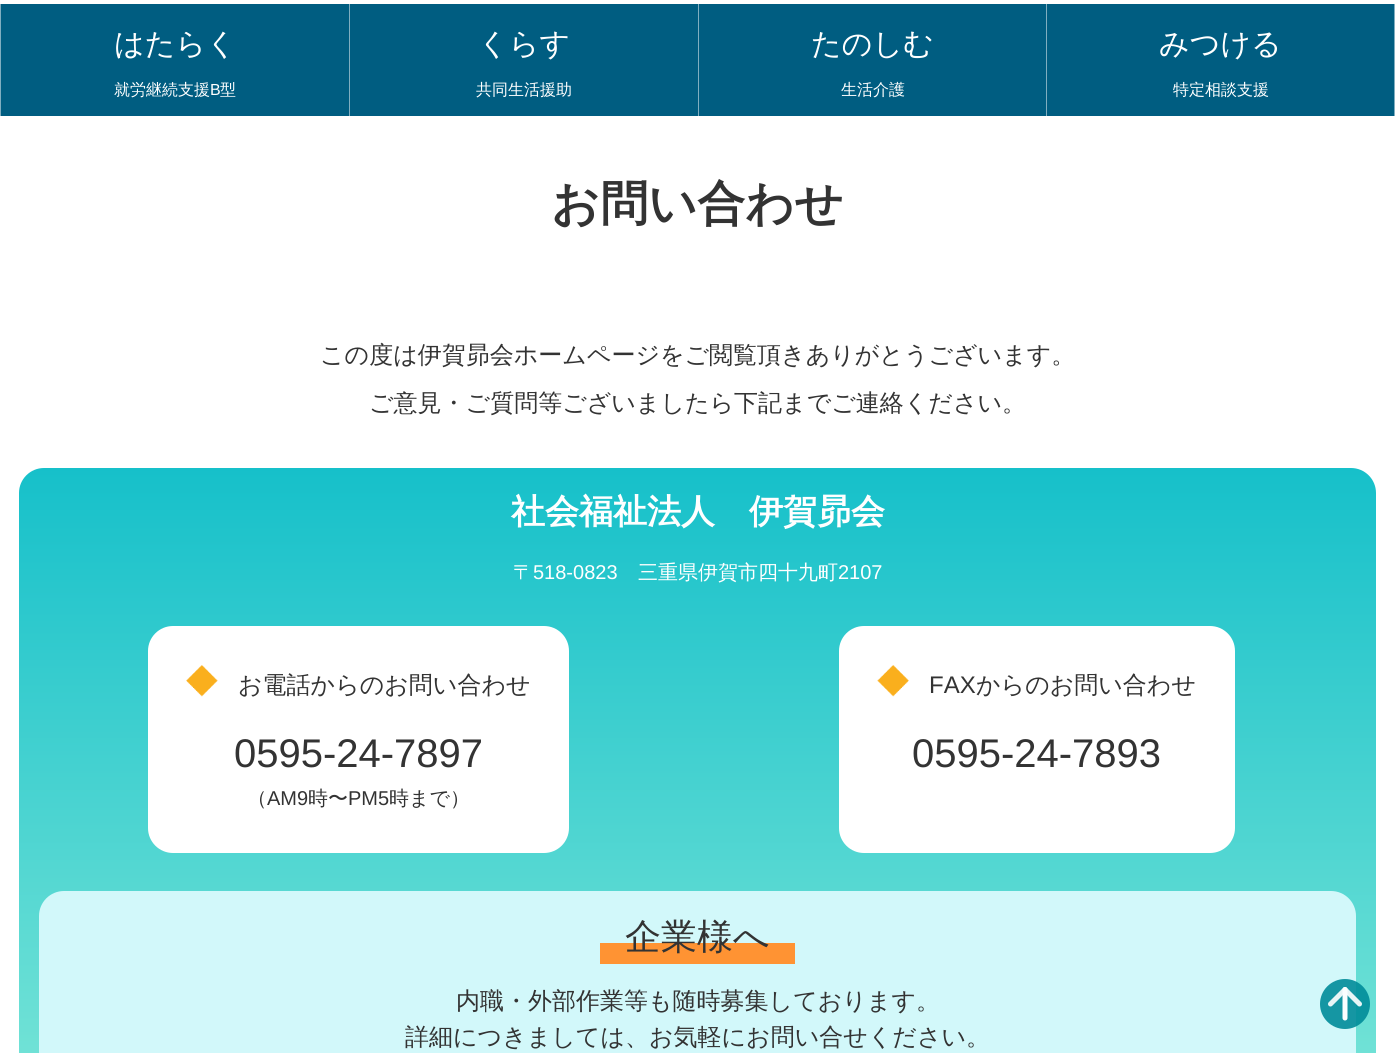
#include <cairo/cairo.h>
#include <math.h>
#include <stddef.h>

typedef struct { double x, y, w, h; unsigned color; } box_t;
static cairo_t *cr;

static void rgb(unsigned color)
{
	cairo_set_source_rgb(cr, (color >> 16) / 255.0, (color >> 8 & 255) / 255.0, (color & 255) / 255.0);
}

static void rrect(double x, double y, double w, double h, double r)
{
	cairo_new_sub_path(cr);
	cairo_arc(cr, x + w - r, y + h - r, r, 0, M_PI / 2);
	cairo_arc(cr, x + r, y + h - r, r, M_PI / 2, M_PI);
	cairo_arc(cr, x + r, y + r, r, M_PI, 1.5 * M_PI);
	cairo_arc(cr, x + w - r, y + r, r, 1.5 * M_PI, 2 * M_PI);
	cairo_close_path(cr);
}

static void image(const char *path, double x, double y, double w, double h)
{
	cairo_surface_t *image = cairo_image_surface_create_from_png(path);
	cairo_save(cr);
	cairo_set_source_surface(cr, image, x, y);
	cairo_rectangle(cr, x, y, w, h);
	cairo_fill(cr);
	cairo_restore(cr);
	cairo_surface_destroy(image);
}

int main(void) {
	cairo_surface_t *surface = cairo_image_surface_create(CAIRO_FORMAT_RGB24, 1395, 1053);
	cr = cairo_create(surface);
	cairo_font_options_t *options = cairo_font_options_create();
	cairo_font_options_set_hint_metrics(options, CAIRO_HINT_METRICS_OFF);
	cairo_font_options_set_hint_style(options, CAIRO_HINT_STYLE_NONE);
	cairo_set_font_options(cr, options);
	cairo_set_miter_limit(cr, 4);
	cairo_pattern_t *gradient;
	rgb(0xffffff);
	cairo_paint(cr);
	{
		static const box_t items[] = {
			{1, 4, 1393, 112, 0x005d81},
			{0, 4, 1, 112, 0x80aec0},
			{349, 4, 1, 112, 0x80aec0},
			{698, 4, 1, 112, 0x80aec0},
			{1394, 4, 1, 112, 0x80aec0},
			{1046, 4, 1, 112, 0x80aec0},
		};
		for (size_t i = 0; i < sizeof items / sizeof *items; i++) {
			rgb(items[i].color);
			cairo_rectangle(cr, items[i].x, items[i].y, items[i].w, items[i].h);
			cairo_fill(cr);
		}
	}
	gradient = cairo_pattern_create_linear(698, 467, 698, 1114);
	cairo_pattern_add_color_stop_rgba(gradient, 0, 0.086, 0.753, 0.792, 1);
	cairo_pattern_add_color_stop_rgba(gradient, 1, 0.475, 0.898, 0.843, 1);
	cairo_set_source(cr, gradient);
	cairo_pattern_destroy(gradient);
	rrect(19, 468, 1357, 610, 25);
	cairo_fill(cr);
	rgb(0xffffff);
	rrect(148, 626, 421, 227, 25);
	cairo_fill(cr);
	image("img/1.png", 186, 665, 32, 32);
	rrect(839, 626, 396, 227, 25);
	cairo_fill(cr);
	image("img/2.png", 877, 665, 32, 32);
	rgb(0xd2f8fa);
	rrect(39, 891, 1317, 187, 25);
	cairo_fill(cr);
	rgb(0xff9333);
	cairo_rectangle(cr, 600, 943, 195, 21);
	cairo_fill(cr);
	cairo_set_source_rgba(cr, 0, 0.549, 0.6, 0.9);
	cairo_arc(cr, 1345, 1004, 25, 0, 2 * M_PI);
	cairo_fill(cr);
	cairo_new_path(cr);
	cairo_move_to(cr, 1330.5, 1004);
	cairo_line_to(cr, 1345, 989.5);
	cairo_line_to(cr, 1359.5, 1004);
	cairo_set_source_rgba(cr, 1, 1, 1, 0.9);
	cairo_set_line_width(cr, 5);
	cairo_set_line_cap(cr, CAIRO_LINE_CAP_ROUND);
	cairo_set_line_join(cr, CAIRO_LINE_JOIN_ROUND);
	cairo_stroke(cr);
	cairo_new_path(cr);
	cairo_move_to(cr, 1345, 1018);
	cairo_line_to(cr, 1345, 989.5);
	rgb(0xfbfeff);
	cairo_set_line_join(cr, CAIRO_LINE_JOIN_MITER);
	cairo_stroke(cr);
	cairo_select_font_face(cr, "WenQuanYi Zen Hei Medium", CAIRO_FONT_SLANT_NORMAL, CAIRO_FONT_WEIGHT_NORMAL);
	cairo_set_font_size(cr, 30);
	rgb(0xffffff);
	cairo_move_to(cr, 114, 54);
	cairo_show_text(cr, "はたらく");
	cairo_set_font_size(cr, 16);
	cairo_move_to(cr, 114, 95);
	cairo_show_text(cr, "就労継続支援");
	cairo_select_font_face(cr, "Liberation Sans", CAIRO_FONT_SLANT_NORMAL, CAIRO_FONT_WEIGHT_NORMAL);
	cairo_move_to(cr, 210, 95);
	cairo_show_text(cr, "B");
	cairo_select_font_face(cr, "WenQuanYi Zen Hei Medium", CAIRO_FONT_SLANT_NORMAL, CAIRO_FONT_WEIGHT_NORMAL);
	cairo_move_to(cr, 220, 95);
	cairo_show_text(cr, "型");
	cairo_set_font_size(cr, 30);
	cairo_move_to(cr, 478, 54);
	cairo_show_text(cr, "くらす");
	cairo_set_font_size(cr, 16);
	cairo_move_to(cr, 476, 95);
	cairo_show_text(cr, "共同生活援助");
	cairo_set_font_size(cr, 30);
	cairo_move_to(cr, 811, 54);
	cairo_show_text(cr, "たのしむ");
	cairo_set_font_size(cr, 16);
	cairo_move_to(cr, 841, 95);
	cairo_show_text(cr, "生活介護");
	cairo_set_font_size(cr, 30);
	cairo_move_to(cr, 1159, 54);
	cairo_show_text(cr, "みつける");
	cairo_set_font_size(cr, 16);
	cairo_move_to(cr, 1173, 95);
	cairo_show_text(cr, "特定相談支援");
	cairo_select_font_face(cr, "WenQuanYi Zen Hei", CAIRO_FONT_SLANT_NORMAL, CAIRO_FONT_WEIGHT_BOLD);
	cairo_set_font_size(cr, 48);
	rgb(0x333333);
	cairo_move_to(cr, 551, 220);
	cairo_show_text(cr, "お問い合わせ");
	cairo_select_font_face(cr, "WenQuanYi Zen Hei Medium", CAIRO_FONT_SLANT_NORMAL, CAIRO_FONT_WEIGHT_NORMAL);
	cairo_set_font_size(cr, 24);
	cairo_move_to(cr, 320, 363);
	cairo_show_text(cr, "この度は伊賀昴会ホームページをご閲覧頂きありがとうございます。");
	cairo_move_to(cr, 369, 411);
	cairo_show_text(cr, "ご意見・ご質問等ございましたら下記までご連絡ください。");
	cairo_select_font_face(cr, "WenQuanYi Zen Hei", CAIRO_FONT_SLANT_NORMAL, CAIRO_FONT_WEIGHT_BOLD);
	cairo_set_font_size(cr, 34);
	rgb(0xffffff);
	cairo_move_to(cr, 511, 523);
	cairo_show_text(cr, "社会福祉法人　伊賀昴会");
	cairo_select_font_face(cr, "WenQuanYi Zen Hei Medium", CAIRO_FONT_SLANT_NORMAL, CAIRO_FONT_WEIGHT_NORMAL);
	cairo_set_font_size(cr, 20);
	cairo_move_to(cr, 513, 579);
	cairo_show_text(cr, "〒");
	cairo_select_font_face(cr, "Liberation Sans", CAIRO_FONT_SLANT_NORMAL, CAIRO_FONT_WEIGHT_NORMAL);
	cairo_move_to(cr, 533, 579);
	cairo_show_text(cr, "518-0823");
	cairo_select_font_face(cr, "WenQuanYi Zen Hei Medium", CAIRO_FONT_SLANT_NORMAL, CAIRO_FONT_WEIGHT_NORMAL);
	cairo_move_to(cr, 638, 579);
	cairo_show_text(cr, "三重県伊賀市四十九町");
	cairo_select_font_face(cr, "Liberation Sans", CAIRO_FONT_SLANT_NORMAL, CAIRO_FONT_WEIGHT_NORMAL);
	cairo_move_to(cr, 838, 579);
	cairo_show_text(cr, "2107");
	cairo_select_font_face(cr, "WenQuanYi Zen Hei Medium", CAIRO_FONT_SLANT_NORMAL, CAIRO_FONT_WEIGHT_NORMAL);
	cairo_set_font_size(cr, 24);
	rgb(0x333333);
	cairo_move_to(cr, 238, 693);
	cairo_show_text(cr, "お電話からのお問い合わせ");
	cairo_select_font_face(cr, "Liberation Sans", CAIRO_FONT_SLANT_NORMAL, CAIRO_FONT_WEIGHT_NORMAL);
	cairo_set_font_size(cr, 40);
	cairo_move_to(cr, 234, 767);
	cairo_show_text(cr, "0595-24-7897");
	cairo_select_font_face(cr, "WenQuanYi Zen Hei Medium", CAIRO_FONT_SLANT_NORMAL, CAIRO_FONT_WEIGHT_NORMAL);
	cairo_set_font_size(cr, 20);
	cairo_move_to(cr, 247, 805);
	cairo_show_text(cr, "（");
	cairo_select_font_face(cr, "Liberation Sans", CAIRO_FONT_SLANT_NORMAL, CAIRO_FONT_WEIGHT_NORMAL);
	cairo_move_to(cr, 267, 805);
	cairo_show_text(cr, "AM9");
	cairo_select_font_face(cr, "WenQuanYi Zen Hei Medium", CAIRO_FONT_SLANT_NORMAL, CAIRO_FONT_WEIGHT_NORMAL);
	cairo_move_to(cr, 308, 805);
	cairo_show_text(cr, "時〜");
	cairo_select_font_face(cr, "Liberation Sans", CAIRO_FONT_SLANT_NORMAL, CAIRO_FONT_WEIGHT_NORMAL);
	cairo_move_to(cr, 348, 805);
	cairo_show_text(cr, "PM5");
	cairo_select_font_face(cr, "WenQuanYi Zen Hei Medium", CAIRO_FONT_SLANT_NORMAL, CAIRO_FONT_WEIGHT_NORMAL);
	cairo_move_to(cr, 389, 805);
	cairo_show_text(cr, "時まで）");
	cairo_select_font_face(cr, "Liberation Sans", CAIRO_FONT_SLANT_NORMAL, CAIRO_FONT_WEIGHT_NORMAL);
	cairo_set_font_size(cr, 24);
	cairo_move_to(cr, 929, 693);
	cairo_show_text(cr, "FAX");
	cairo_select_font_face(cr, "WenQuanYi Zen Hei Medium", CAIRO_FONT_SLANT_NORMAL, CAIRO_FONT_WEIGHT_NORMAL);
	cairo_move_to(cr, 976, 693);
	cairo_show_text(cr, "からのお問い合わせ");
	cairo_select_font_face(cr, "Liberation Sans", CAIRO_FONT_SLANT_NORMAL, CAIRO_FONT_WEIGHT_NORMAL);
	cairo_set_font_size(cr, 40);
	cairo_move_to(cr, 912, 767);
	cairo_show_text(cr, "0595-24-7893");
	cairo_select_font_face(cr, "WenQuanYi Zen Hei Medium", CAIRO_FONT_SLANT_NORMAL, CAIRO_FONT_WEIGHT_NORMAL);
	cairo_set_font_size(cr, 36);
	cairo_move_to(cr, 625, 949);
	cairo_show_text(cr, "企業様へ");
	cairo_set_font_size(cr, 24);
	cairo_move_to(cr, 456, 1009);
	cairo_show_text(cr, "内職・外部作業等も随時募集しております。");
	cairo_move_to(cr, 405, 1045);
	cairo_show_text(cr, "詳細につきましては、お気軽にお問い合せください。");
	cairo_surface_write_to_png(surface, "page.png");
	cairo_font_options_destroy(options);
	cairo_destroy(cr);
	cairo_surface_destroy(surface);
	return 0;
}
